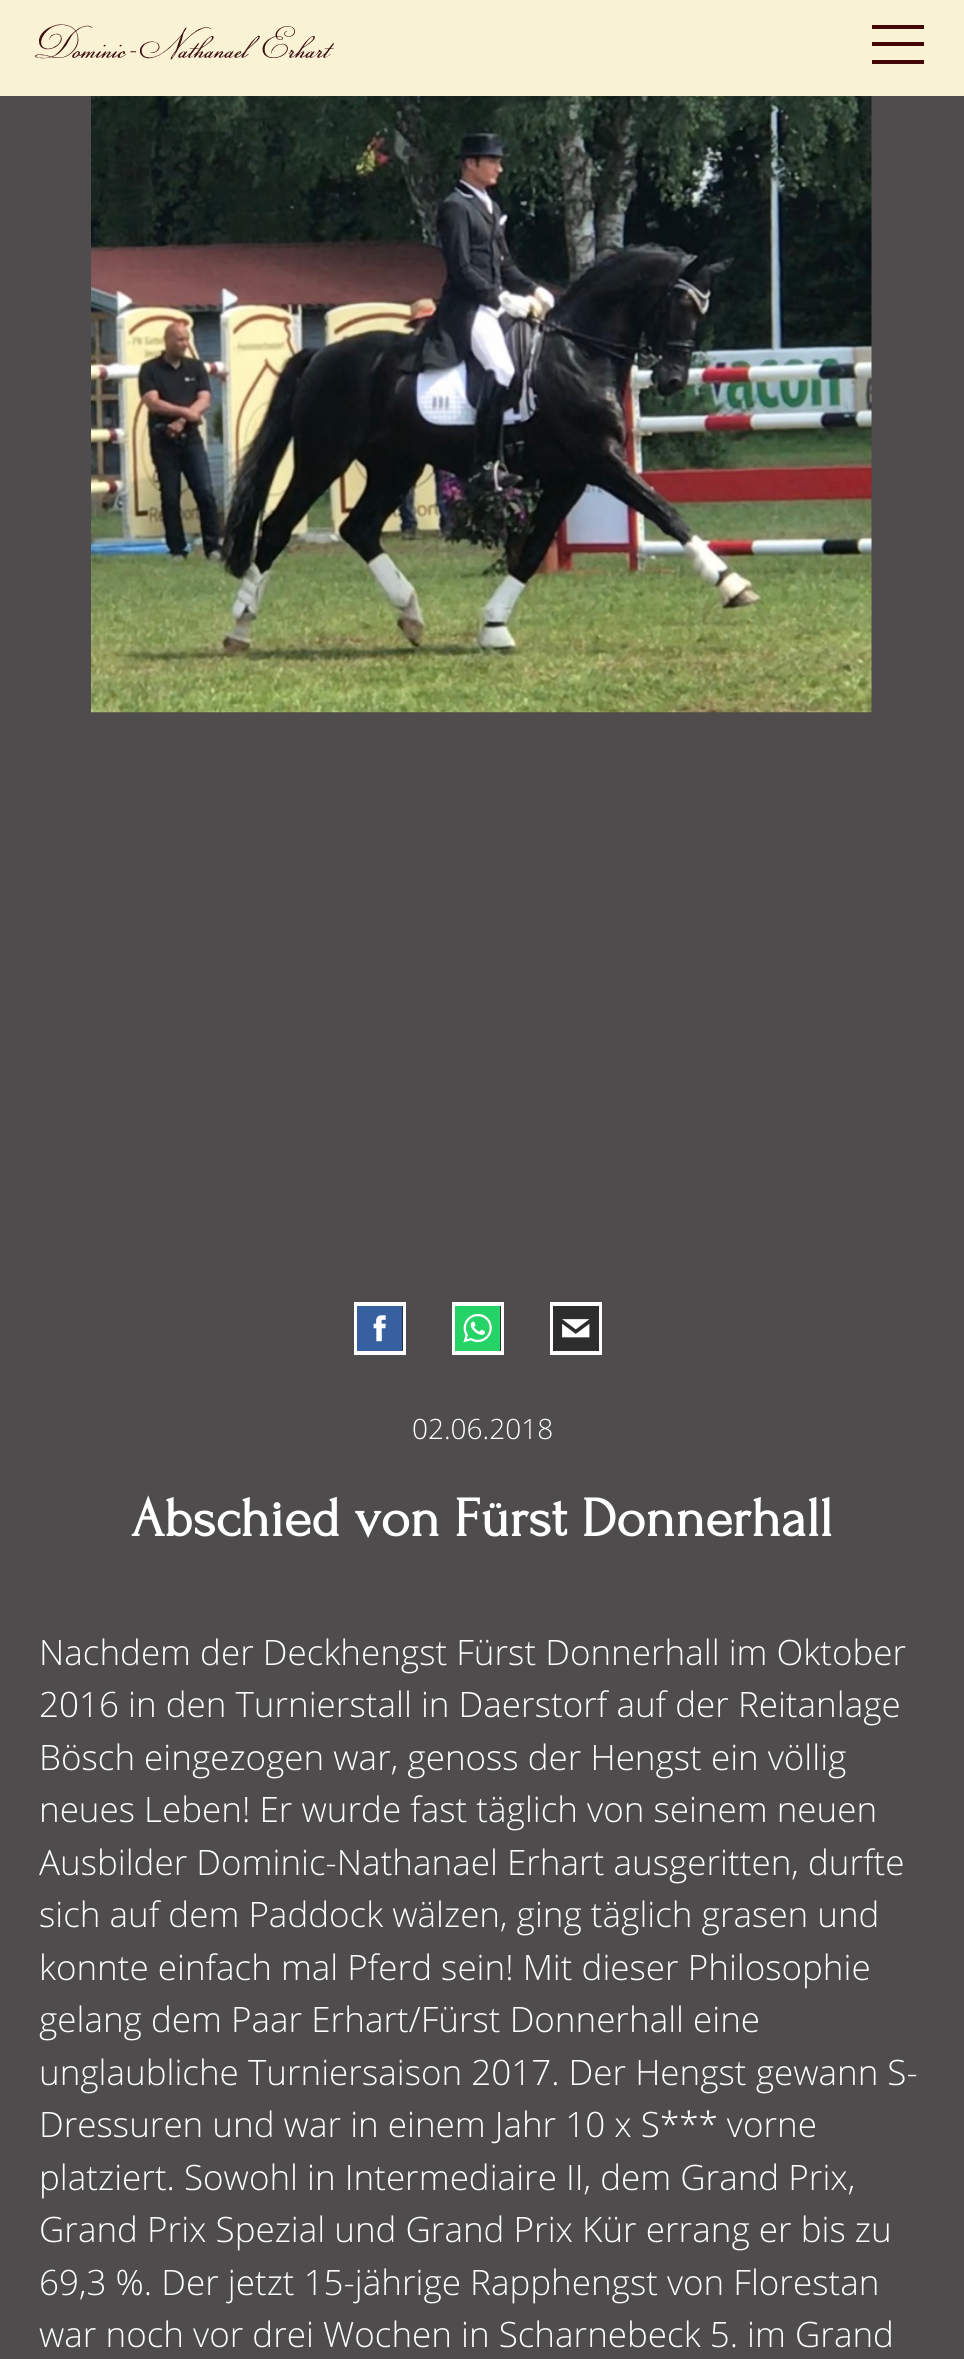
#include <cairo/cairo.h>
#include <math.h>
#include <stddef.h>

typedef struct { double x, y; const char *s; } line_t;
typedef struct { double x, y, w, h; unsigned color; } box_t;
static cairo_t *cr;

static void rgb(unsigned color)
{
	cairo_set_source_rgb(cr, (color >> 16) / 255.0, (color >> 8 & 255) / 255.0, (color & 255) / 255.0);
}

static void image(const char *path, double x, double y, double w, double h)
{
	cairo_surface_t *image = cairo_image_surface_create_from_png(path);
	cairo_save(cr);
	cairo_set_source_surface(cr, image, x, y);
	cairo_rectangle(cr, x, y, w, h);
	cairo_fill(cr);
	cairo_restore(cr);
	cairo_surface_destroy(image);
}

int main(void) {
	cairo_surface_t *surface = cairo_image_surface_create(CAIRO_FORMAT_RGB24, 964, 2359);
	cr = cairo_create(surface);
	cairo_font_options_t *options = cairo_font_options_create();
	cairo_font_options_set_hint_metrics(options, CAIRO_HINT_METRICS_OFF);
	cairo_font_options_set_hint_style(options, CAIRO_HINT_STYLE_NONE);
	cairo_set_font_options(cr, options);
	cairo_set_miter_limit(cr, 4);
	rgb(0x4e4c4c);
	cairo_paint(cr);
	rgb(0xfaf2d5);
	cairo_rectangle(cr, 0, 0, 964, 96);
	cairo_fill(cr);
	image("img/1.png", 35, 24, 299, 36);
	{
		static const box_t items[] = {
			{872, 42, 52, 4, 0x430707},
			{872, 25, 52, 4, 0x430707},
			{872, 60, 52, 4, 0x430707},
		};
		for (size_t i = 0; i < sizeof items / sizeof *items; i++) {
			rgb(items[i].color);
			cairo_rectangle(cr, items[i].x, items[i].y, items[i].w, items[i].h);
			cairo_fill(cr);
		}
	}
	image("img/2.png", 91, 96, 781, 617);
	cairo_rectangle(cr, 356, 1304, 48, 49);
	rgb(0xffffff);
	cairo_set_line_width(cr, 4);
	cairo_stroke(cr);
	image("img/3.png", 357, 1306, 46, 45);
	cairo_rectangle(cr, 454, 1304, 48, 49);
	cairo_stroke(cr);
	image("img/4.png", 455, 1306, 46, 45);
	cairo_rectangle(cr, 552, 1304, 48, 49);
	cairo_stroke(cr);
	image("img/5.png", 553, 1306, 46, 45);
	cairo_select_font_face(cr, "Open Sans Light", CAIRO_FONT_SLANT_NORMAL, CAIRO_FONT_WEIGHT_NORMAL);
	cairo_set_font_size(cr, 28);
	cairo_move_to(cr, 412, 1439);
	cairo_show_text(cr, "02.06.2018");
	cairo_select_font_face(cr, "Forum", CAIRO_FONT_SLANT_NORMAL, CAIRO_FONT_WEIGHT_BOLD);
	cairo_set_font_size(cr, 56);
	cairo_move_to(cr, 131, 1536);
	cairo_show_text(cr, "Abschied von Fürst Donnerhall");
	cairo_select_font_face(cr, "Open Sans Light", CAIRO_FONT_SLANT_NORMAL, CAIRO_FONT_WEIGHT_NORMAL);
	cairo_set_font_size(cr, 35);
	{
		static const line_t items[] = {
			{39, 1665, "Nachdem der Deckhengst Fürst Donnerhall im Oktober"},
			{39, 1717, "2016 in den Turnierstall in Daerstorf auf der Reitanlage"},
			{39, 1770, "Bösch eingezogen war, genoss der Hengst ein völlig"},
			{39, 1822, "neues Leben! Er wurde fast täglich von seinem neuen"},
			{39, 1875, "Ausbilder Dominic-Nathanael Erhart ausgeritten, durfte"},
			{39, 1927, "sich auf dem Paddock wälzen, ging täglich grasen und"},
			{39, 1980, "konnte einfach mal Pferd sein! Mit dieser Philosophie"},
			{39, 2032, "gelang dem Paar Erhart/Fürst Donnerhall eine"},
			{39, 2085, "unglaubliche Turniersaison 2017. Der Hengst gewann S-"},
			{39, 2137, "Dressuren und war in einem Jahr 10 x S*** vorne"},
			{39, 2190, "platziert. Sowohl in Intermediaire II, dem Grand Prix,"},
			{39, 2242, "Grand Prix Spezial und Grand Prix Kür errang er bis zu"},
			{39, 2295, "69,3 %. Der jetzt 15-jährige Rapphengst von Florestan"},
			{39, 2347, "war noch vor drei Wochen in Scharnebeck 5. im Grand"},
		};
		for (size_t i = 0; i < sizeof items / sizeof *items; i++) {
			cairo_move_to(cr, items[i].x, items[i].y);
			cairo_show_text(cr, items[i].s);
		}
	}
	cairo_surface_write_to_png(surface, "page.png");
	cairo_font_options_destroy(options);
	cairo_destroy(cr);
	cairo_surface_destroy(surface);
	return 0;
}
